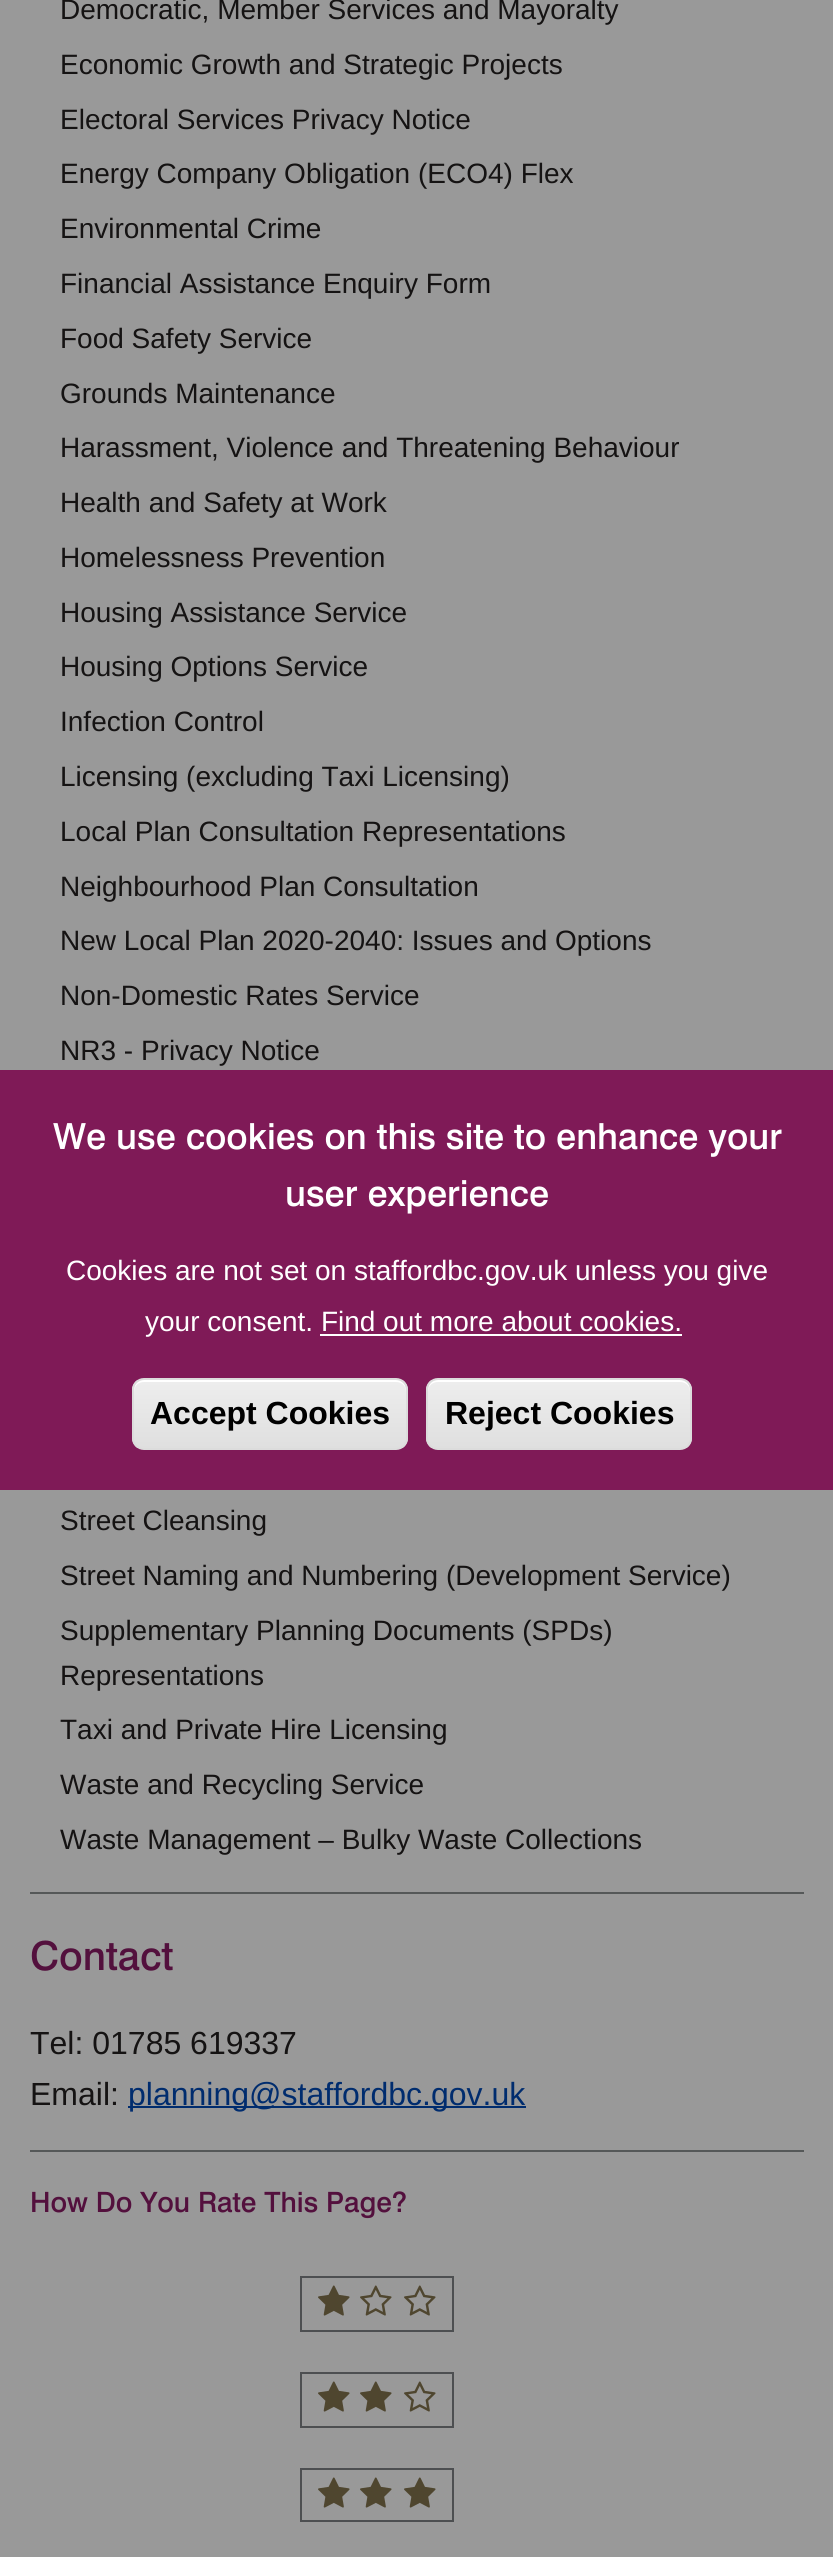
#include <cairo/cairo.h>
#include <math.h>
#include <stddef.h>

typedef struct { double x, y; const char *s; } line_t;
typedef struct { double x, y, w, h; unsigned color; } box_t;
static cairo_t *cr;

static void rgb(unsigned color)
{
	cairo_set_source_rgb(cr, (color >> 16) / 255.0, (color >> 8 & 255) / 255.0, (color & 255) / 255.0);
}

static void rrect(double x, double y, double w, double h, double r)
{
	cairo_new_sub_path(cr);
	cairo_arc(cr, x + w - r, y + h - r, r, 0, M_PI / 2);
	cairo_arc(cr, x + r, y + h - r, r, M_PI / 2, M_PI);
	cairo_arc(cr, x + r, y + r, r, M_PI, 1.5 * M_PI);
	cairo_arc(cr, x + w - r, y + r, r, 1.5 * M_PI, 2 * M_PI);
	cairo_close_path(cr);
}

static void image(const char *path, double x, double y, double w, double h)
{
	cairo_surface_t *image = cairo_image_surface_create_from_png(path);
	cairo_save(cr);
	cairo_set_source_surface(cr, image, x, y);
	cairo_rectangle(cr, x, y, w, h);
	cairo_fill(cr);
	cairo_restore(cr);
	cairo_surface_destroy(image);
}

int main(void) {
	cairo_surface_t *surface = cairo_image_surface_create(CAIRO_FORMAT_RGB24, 833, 2557);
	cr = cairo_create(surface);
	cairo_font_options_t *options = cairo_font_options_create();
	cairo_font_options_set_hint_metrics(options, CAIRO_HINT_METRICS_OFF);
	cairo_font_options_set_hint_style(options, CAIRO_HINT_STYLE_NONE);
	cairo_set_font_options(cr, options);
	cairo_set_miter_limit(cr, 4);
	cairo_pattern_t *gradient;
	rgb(0x999999);
	cairo_paint(cr);
	{
		static const box_t items[] = {
			{30, 1892, 774, 2, 0x555858},
			{30, 2150, 774, 2, 0x555858},
			{128, 2106, 398, 2, 0x002c6e},
		};
		for (size_t i = 0; i < sizeof items / sizeof *items; i++) {
			rgb(items[i].color);
			cairo_rectangle(cr, items[i].x, items[i].y, items[i].w, items[i].h);
			cairo_fill(cr);
		}
	}
	cairo_rectangle(cr, 301, 2277, 152, 54);
	rgb(0x4d4f51);
	cairo_stroke(cr);
	image("img/1.png", 318, 2285, 32, 31);
	image("img/2.png", 360, 2285, 32, 31);
	image("img/2.png", 404, 2285, 32, 31);
	cairo_rectangle(cr, 301, 2373, 152, 54);
	cairo_stroke(cr);
	image("img/1.png", 318, 2381, 32, 31);
	image("img/1.png", 360, 2381, 32, 31);
	image("img/2.png", 404, 2381, 32, 31);
	cairo_rectangle(cr, 301, 2469, 152, 52);
	cairo_stroke(cr);
	image("img/1.png", 318, 2477, 32, 31);
	image("img/1.png", 360, 2477, 32, 31);
	image("img/1.png", 404, 2477, 32, 31);
	rgb(0x7f1a57);
	cairo_rectangle(cr, 0, 1070, 833, 420);
	cairo_fill(cr);
	rgb(0xffffff);
	cairo_rectangle(cr, 320, 1334, 362, 2);
	cairo_fill(cr);
	cairo_save(cr);
	rrect(132, 1378, 276, 72, 12);
	cairo_clip(cr);
	gradient = cairo_pattern_create_linear(270, 1380, 270, 1448);
	cairo_pattern_add_color_stop_rgba(gradient, 0.05, 0.929, 0.929, 0.929, 1);
	cairo_pattern_add_color_stop_rgba(gradient, 1, 0.875, 0.875, 0.875, 1);
	cairo_set_source(cr, gradient);
	cairo_pattern_destroy(gradient);
	cairo_rectangle(cr, 132, 1380, 276, 68);
	cairo_fill(cr);
	cairo_restore(cr);
	cairo_new_path(cr);
	cairo_move_to(cr, 144, 1382);
	cairo_line_to(cr, 396, 1382);
	cairo_curve_to(cr, 402, 1382, 406, 1386, 406, 1392);
	cairo_line_to(cr, 406, 1390);
	cairo_curve_to(cr, 406, 1384, 402, 1380, 396, 1380);
	cairo_line_to(cr, 144, 1380);
	cairo_curve_to(cr, 138, 1380, 134, 1384, 134, 1390);
	cairo_line_to(cr, 134, 1392);
	cairo_curve_to(cr, 134, 1386, 138, 1382, 144, 1382);
	cairo_close_path(cr);
	cairo_fill(cr);
	rrect(133, 1379, 274, 70, 11);
	rgb(0xdcdcdc);
	cairo_stroke(cr);
	cairo_save(cr);
	rrect(426, 1378, 266, 72, 12);
	cairo_clip(cr);
	gradient = cairo_pattern_create_linear(559, 1380, 559, 1448);
	cairo_pattern_add_color_stop_rgba(gradient, 0.05, 0.929, 0.929, 0.929, 1);
	cairo_pattern_add_color_stop_rgba(gradient, 1, 0.875, 0.875, 0.875, 1);
	cairo_set_source(cr, gradient);
	cairo_pattern_destroy(gradient);
	cairo_rectangle(cr, 426, 1380, 266, 68);
	cairo_fill(cr);
	cairo_restore(cr);
	rgb(0xffffff);
	cairo_new_path(cr);
	cairo_move_to(cr, 438, 1382);
	cairo_line_to(cr, 680, 1382);
	cairo_curve_to(cr, 686, 1382, 690, 1386, 690, 1392);
	cairo_line_to(cr, 690, 1390);
	cairo_curve_to(cr, 690, 1384, 686, 1380, 680, 1380);
	cairo_line_to(cr, 438, 1380);
	cairo_curve_to(cr, 432, 1380, 428, 1384, 428, 1390);
	cairo_line_to(cr, 428, 1392);
	cairo_curve_to(cr, 428, 1386, 432, 1382, 438, 1382);
	cairo_close_path(cr);
	cairo_fill(cr);
	rrect(427, 1379, 264, 70, 11);
	rgb(0xdcdcdc);
	cairo_stroke(cr);
	cairo_select_font_face(cr, "Liberation Sans", CAIRO_FONT_SLANT_NORMAL, CAIRO_FONT_WEIGHT_NORMAL);
	cairo_set_font_size(cr, 28);
	rgb(0x151313);
	{
		static const line_t items[] = {
			{60, 19, "Democratic, Member Services and Mayoralty"},
			{60, 74, "Economic Growth and Strategic Projects"},
			{60, 129, "Electoral Services Privacy Notice"},
			{60, 183, "Energy Company Obligation (ECO4) Flex"},
			{60, 238, "Environmental Crime"},
			{60, 293, "Financial Assistance Enquiry Form"},
			{60, 348, "Food Safety Service"},
			{60, 403, "Grounds Maintenance"},
			{60, 457, "Harassment, Violence and Threatening Behaviour"},
			{60, 512, "Health and Safety at Work"},
			{60, 567, "Homelessness Prevention"},
			{60, 622, "Housing Assistance Service"},
			{60, 676, "Housing Options Service"},
			{60, 731, "Infection Control"},
			{60, 786, "Licensing (excluding Taxi Licensing)"},
			{60, 841, "Local Plan Consultation Representations"},
			{60, 896, "Neighbourhood Plan Consultation"},
			{60, 950, "New Local Plan 2020-2040: Issues and Options"},
			{60, 1005, "Non-Domestic Rates Service"},
			{60, 1060, "NR3 - Privacy Notice"},
			{60, 1530, "Street Cleansing"},
			{60, 1585, "Street Naming and Numbering (Development Service)"},
			{60, 1640, "Supplementary Planning Documents (SPDs)"},
			{60, 1685, "Representations"},
			{60, 1739, "Taxi and Private Hire Licensing"},
			{60, 1794, "Waste and Recycling Service"},
			{60, 1849, "Waste Management – Bulky Waste Collections"},
		};
		for (size_t i = 0; i < sizeof items / sizeof *items; i++) {
			cairo_move_to(cr, items[i].x, items[i].y);
			cairo_show_text(cr, items[i].s);
		}
	}
	cairo_select_font_face(cr, "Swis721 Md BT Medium", CAIRO_FONT_SLANT_NORMAL, CAIRO_FONT_WEIGHT_NORMAL);
	cairo_set_font_size(cr, 40);
	rgb(0x53103d);
	cairo_move_to(cr, 30, 1970);
	cairo_show_text(cr, "Contact");
	cairo_select_font_face(cr, "Liberation Sans", CAIRO_FONT_SLANT_NORMAL, CAIRO_FONT_WEIGHT_NORMAL);
	cairo_set_font_size(cr, 32);
	rgb(0x151313);
	cairo_move_to(cr, 30, 2054);
	cairo_show_text(cr, "Tel: 01785 619337");
	cairo_move_to(cr, 30, 2105);
	cairo_show_text(cr, "Email:");
	rgb(0x002c6e);
	cairo_move_to(cr, 128, 2105);
	cairo_show_text(cr, "planning@staffordbc.gov.uk");
	cairo_select_font_face(cr, "Swis721 Md BT Medium", CAIRO_FONT_SLANT_NORMAL, CAIRO_FONT_WEIGHT_NORMAL);
	cairo_set_font_size(cr, 28);
	rgb(0x53103d);
	cairo_move_to(cr, 30, 2212);
	cairo_show_text(cr, "How Do You Rate This Page?");
	cairo_set_font_size(cr, 36);
	rgb(0xffffff);
	cairo_move_to(cr, 53, 1149);
	cairo_show_text(cr, "We use cookies on this site to enhance your");
	cairo_move_to(cr, 285, 1206);
	cairo_show_text(cr, "user experience");
	cairo_select_font_face(cr, "Liberation Sans", CAIRO_FONT_SLANT_NORMAL, CAIRO_FONT_WEIGHT_NORMAL);
	cairo_set_font_size(cr, 28);
	cairo_move_to(cr, 66, 1280);
	cairo_show_text(cr, "Cookies are not set on staffordbc.gov.uk unless you give");
	cairo_move_to(cr, 145, 1331);
	cairo_show_text(cr, "your consent. Find out more about cookies.");
	cairo_select_font_face(cr, "Liberation Sans", CAIRO_FONT_SLANT_NORMAL, CAIRO_FONT_WEIGHT_BOLD);
	cairo_set_font_size(cr, 32);
	rgb(0x000000);
	cairo_move_to(cr, 150, 1424);
	cairo_show_text(cr, "Accept Cookies");
	cairo_move_to(cr, 445, 1424);
	cairo_show_text(cr, "Reject Cookies");
	cairo_surface_write_to_png(surface, "page.png");
	cairo_font_options_destroy(options);
	cairo_destroy(cr);
	cairo_surface_destroy(surface);
	return 0;
}
